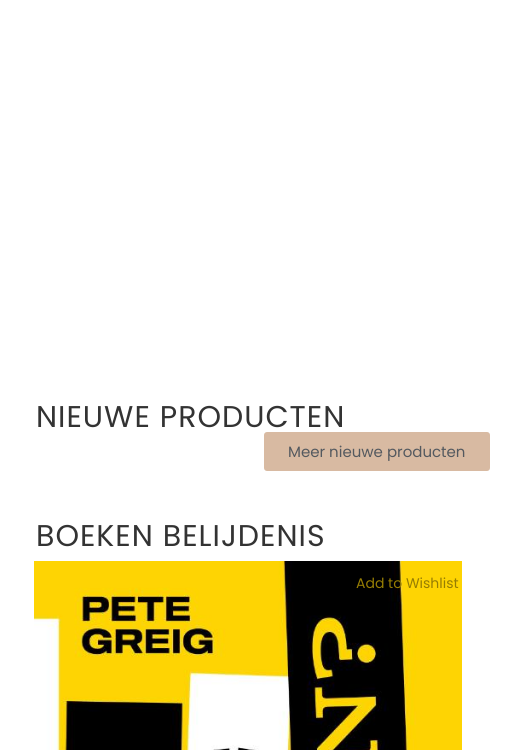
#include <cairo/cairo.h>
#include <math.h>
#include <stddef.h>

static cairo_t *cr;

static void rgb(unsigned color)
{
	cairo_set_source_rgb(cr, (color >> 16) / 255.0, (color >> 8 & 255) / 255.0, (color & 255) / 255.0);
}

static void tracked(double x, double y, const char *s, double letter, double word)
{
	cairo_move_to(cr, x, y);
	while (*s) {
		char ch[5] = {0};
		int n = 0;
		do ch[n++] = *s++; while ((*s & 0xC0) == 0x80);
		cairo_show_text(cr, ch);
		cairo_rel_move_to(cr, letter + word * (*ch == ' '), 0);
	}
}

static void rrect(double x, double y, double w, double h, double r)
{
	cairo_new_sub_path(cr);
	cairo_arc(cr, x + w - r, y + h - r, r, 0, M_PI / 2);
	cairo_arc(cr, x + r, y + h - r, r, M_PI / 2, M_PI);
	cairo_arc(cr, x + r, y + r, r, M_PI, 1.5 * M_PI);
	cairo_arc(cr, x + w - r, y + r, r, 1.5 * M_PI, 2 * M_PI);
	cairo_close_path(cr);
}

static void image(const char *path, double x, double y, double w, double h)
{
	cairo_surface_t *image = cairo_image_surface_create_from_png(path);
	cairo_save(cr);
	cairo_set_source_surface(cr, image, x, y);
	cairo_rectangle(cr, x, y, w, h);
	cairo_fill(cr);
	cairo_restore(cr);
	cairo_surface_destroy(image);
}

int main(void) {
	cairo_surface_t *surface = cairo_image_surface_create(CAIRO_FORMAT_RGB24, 526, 750);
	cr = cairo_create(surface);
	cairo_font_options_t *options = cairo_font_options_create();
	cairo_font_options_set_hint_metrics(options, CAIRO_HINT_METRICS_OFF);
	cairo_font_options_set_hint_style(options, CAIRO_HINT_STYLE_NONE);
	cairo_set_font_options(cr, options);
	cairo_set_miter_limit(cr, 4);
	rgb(0xffffff);
	cairo_paint(cr);
	rgb(0xd8baa2);
	rrect(264, 432, 226, 39, 3);
	cairo_fill(cr);
	image("img/1.png", 34, 561, 428, 189);
	cairo_select_font_face(cr, "Poppins", CAIRO_FONT_SLANT_NORMAL, CAIRO_FONT_WEIGHT_NORMAL);
	cairo_set_font_size(cr, 30);
	rgb(0x333333);
	tracked(36, 427, "NIEUWE PRODUCTEN", 1, 0);
	cairo_set_font_size(cr, 15);
	rgb(0x54595f);
	cairo_move_to(cr, 288, 457);
	cairo_show_text(cr, "Meer nieuwe producten");
	cairo_set_font_size(cr, 30);
	rgb(0x333333);
	tracked(36, 546, "BOEKEN BELIJDENIS", 1, 0);
	cairo_set_font_size(cr, 14);
	rgb(0x967d03);
	cairo_move_to(cr, 356, 588);
	cairo_show_text(cr, "Add to Wishlist");
	cairo_surface_write_to_png(surface, "page.png");
	cairo_font_options_destroy(options);
	cairo_destroy(cr);
	cairo_surface_destroy(surface);
	return 0;
}
